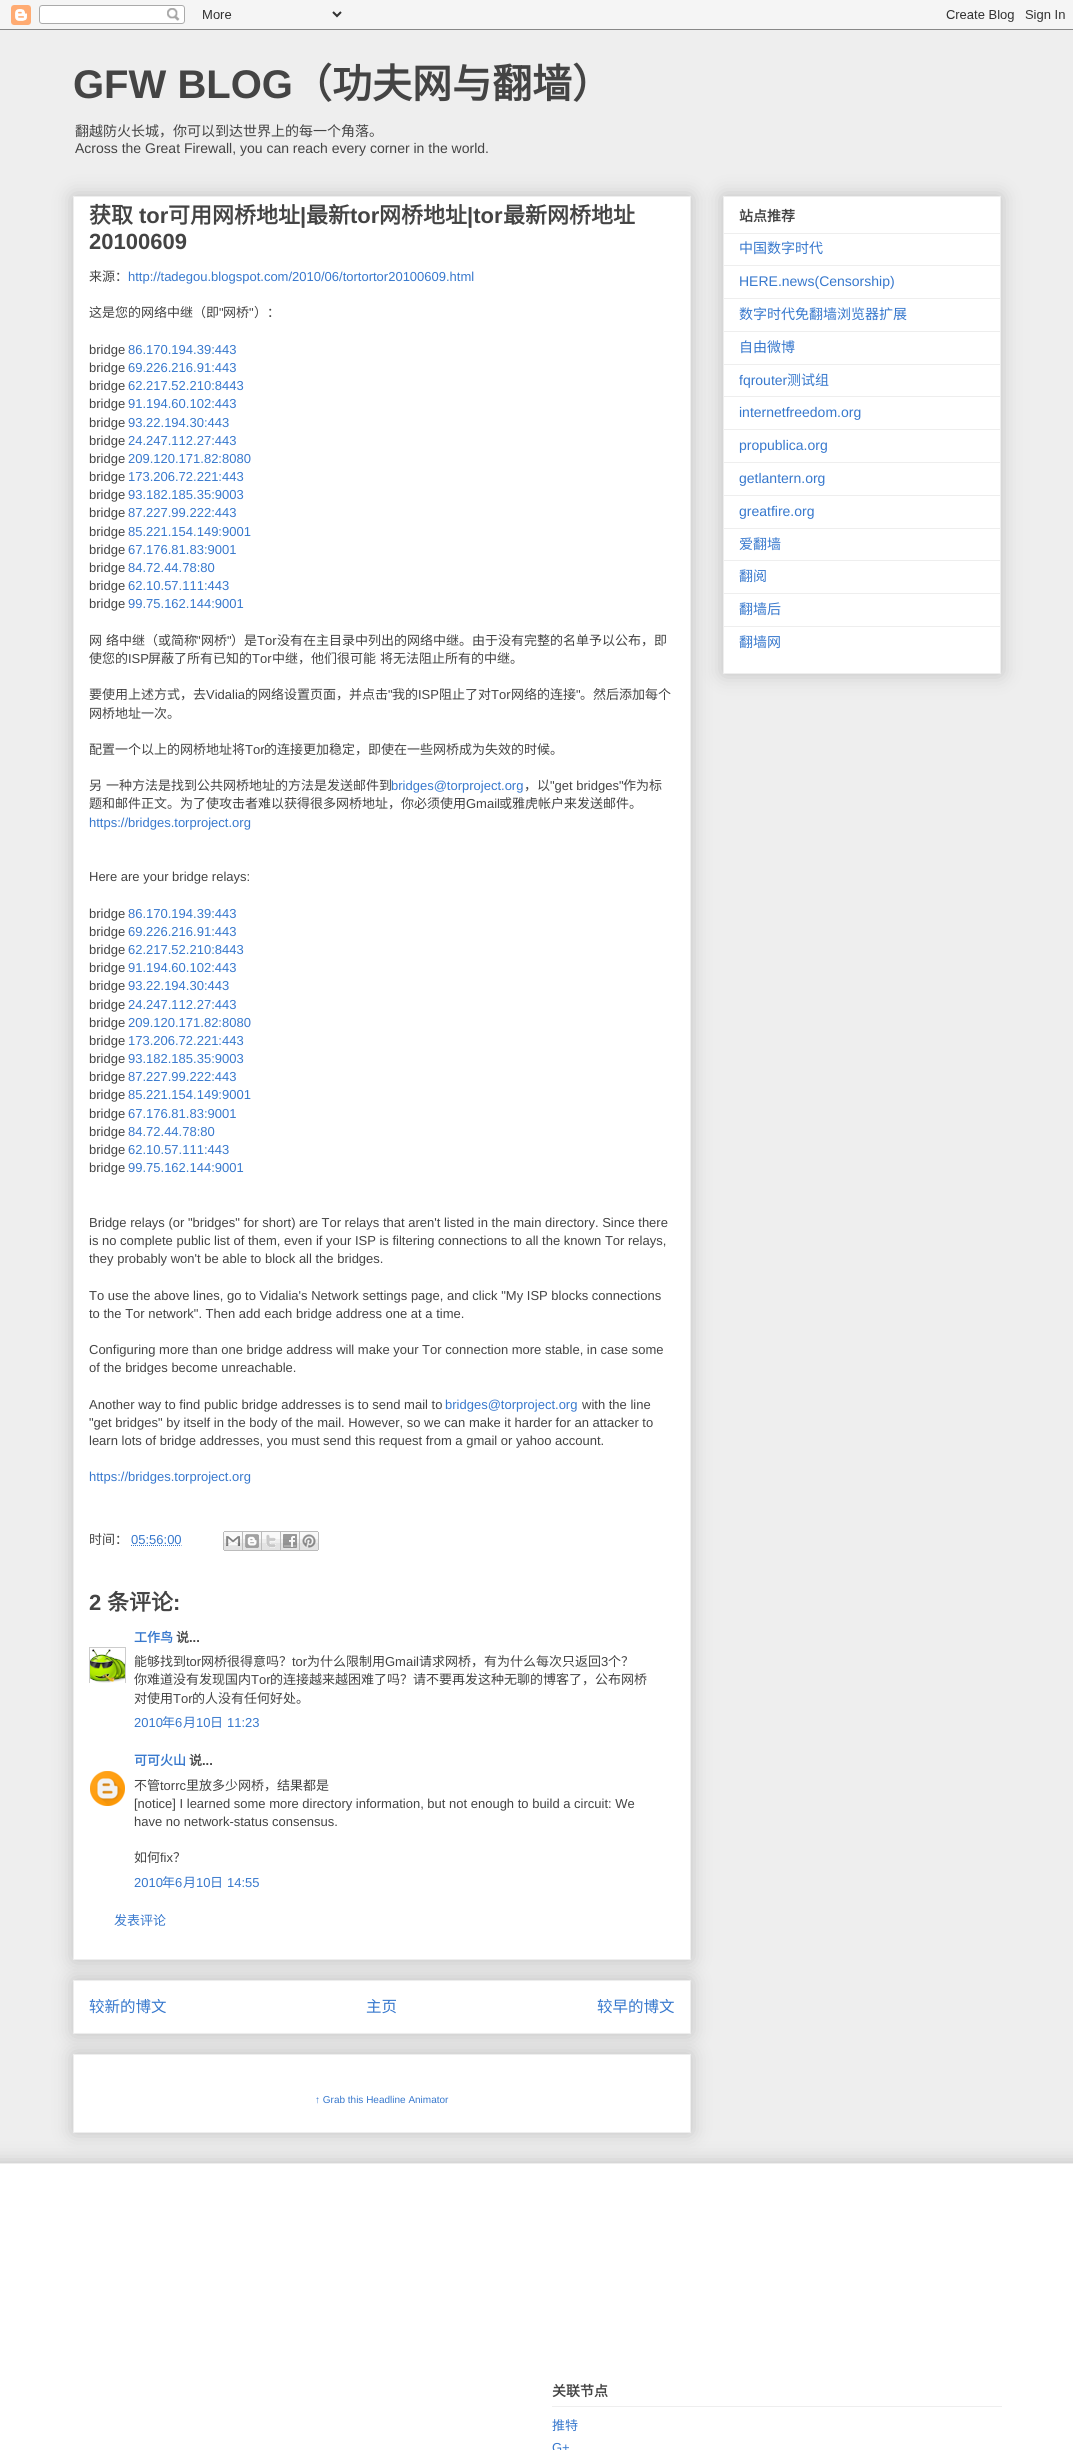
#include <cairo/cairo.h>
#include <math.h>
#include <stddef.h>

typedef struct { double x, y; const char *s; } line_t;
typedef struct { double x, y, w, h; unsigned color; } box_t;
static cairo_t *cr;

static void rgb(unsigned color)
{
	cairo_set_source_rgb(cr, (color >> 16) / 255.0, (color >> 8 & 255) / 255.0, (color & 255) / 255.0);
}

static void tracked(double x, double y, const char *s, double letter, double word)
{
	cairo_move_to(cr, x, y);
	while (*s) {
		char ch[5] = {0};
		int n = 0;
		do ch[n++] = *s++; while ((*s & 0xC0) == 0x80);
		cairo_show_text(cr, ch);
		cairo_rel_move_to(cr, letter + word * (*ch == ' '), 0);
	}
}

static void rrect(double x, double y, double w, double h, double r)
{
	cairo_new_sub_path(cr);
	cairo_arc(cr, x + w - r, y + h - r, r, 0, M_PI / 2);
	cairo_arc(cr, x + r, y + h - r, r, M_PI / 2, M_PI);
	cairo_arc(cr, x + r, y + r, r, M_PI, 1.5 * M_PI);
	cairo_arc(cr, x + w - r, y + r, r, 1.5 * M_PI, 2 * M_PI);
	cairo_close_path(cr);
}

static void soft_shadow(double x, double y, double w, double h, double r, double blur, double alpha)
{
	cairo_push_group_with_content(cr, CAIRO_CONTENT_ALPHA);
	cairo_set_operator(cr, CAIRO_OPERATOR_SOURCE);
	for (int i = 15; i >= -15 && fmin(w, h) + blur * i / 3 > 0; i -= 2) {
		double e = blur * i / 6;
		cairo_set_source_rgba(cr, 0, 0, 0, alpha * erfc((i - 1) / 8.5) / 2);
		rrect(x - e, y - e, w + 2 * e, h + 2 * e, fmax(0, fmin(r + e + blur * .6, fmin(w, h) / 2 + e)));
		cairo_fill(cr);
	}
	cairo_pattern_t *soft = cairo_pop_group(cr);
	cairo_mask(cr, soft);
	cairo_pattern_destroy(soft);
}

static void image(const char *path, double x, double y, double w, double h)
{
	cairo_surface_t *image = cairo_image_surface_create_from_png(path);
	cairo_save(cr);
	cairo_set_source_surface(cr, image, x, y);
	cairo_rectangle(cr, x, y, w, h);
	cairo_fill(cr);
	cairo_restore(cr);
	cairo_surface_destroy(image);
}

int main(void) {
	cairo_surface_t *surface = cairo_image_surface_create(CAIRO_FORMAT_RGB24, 1073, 2450);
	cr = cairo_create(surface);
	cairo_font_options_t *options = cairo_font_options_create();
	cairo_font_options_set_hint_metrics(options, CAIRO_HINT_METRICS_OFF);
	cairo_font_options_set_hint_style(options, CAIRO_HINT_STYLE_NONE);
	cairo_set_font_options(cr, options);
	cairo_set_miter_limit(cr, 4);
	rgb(0xeeeeee);
	cairo_paint(cr);
	image("img/1.png", 0, 0, 1073, 30);
	rgb(0x000000);
	soft_shadow(73, 1980, 618, 54, 0, 10, 0.2);
	rgb(0xffffff);
	cairo_rectangle(cr, 73.5, 1980.5, 617, 53);
	cairo_fill_preserve(cr);
	rgb(0xeeeeee);
	cairo_set_line_width(cr, 1);
	cairo_stroke(cr);
	rgb(0x000000);
	soft_shadow(73, 196, 618, 1764, 0, 10, 0.2);
	rgb(0xffffff);
	cairo_rectangle(cr, 73.5, 196.5, 617, 1763);
	cairo_fill_preserve(cr);
	rgb(0xeeeeee);
	cairo_stroke(cr);
	cairo_new_path(cr);
	cairo_move_to(cr, 131, 1545.5);
	cairo_line_to(cr, 181.5, 1545.5);
	rgb(0x3778cd);
	cairo_set_dash(cr, (double[]){1, 1}, 2, 0);
	cairo_stroke(cr);
	image("img/2.png", 223, 1531, 20, 20);
	image("img/3.png", 243, 1531, 19, 20);
	image("img/4.png", 262, 1531, 19, 20);
	image("img/5.png", 281, 1531, 19, 20);
	image("img/6.png", 300, 1531, 19, 20);
	cairo_save(cr);
	cairo_rectangle(cr, 89, 1647, 37, 36);
	cairo_clip(cr);
	cairo_rectangle(cr, 89.5, 1647.5, 36, 36);
	rgb(0xcccccc);
	cairo_set_dash(cr, NULL, 0, 0);
	cairo_stroke(cr);
	cairo_restore(cr);
	image("img/7.png", 90, 1649, 35, 34);
	image("img/8.png", 90, 1771, 35, 35);
	rgb(0x000000);
	soft_shadow(73, 2054, 618, 79, 0, 10, 0.2);
	rgb(0xffffff);
	cairo_rectangle(cr, 73.5, 2054.5, 617, 78);
	cairo_fill_preserve(cr);
	rgb(0xeeeeee);
	cairo_set_dash(cr, NULL, 0, 0);
	cairo_stroke(cr);
	rgb(0x000000);
	soft_shadow(723, 196, 278, 478, 0, 10, 0.2);
	rgb(0xffffff);
	cairo_rectangle(cr, 723.5, 196.5, 277, 477);
	cairo_fill_preserve(cr);
	rgb(0xeeeeee);
	cairo_stroke(cr);
	{
		static const box_t items[] = {
			{724, 233, 276, 1, 0xeeeeee},
			{724, 265, 276, 1, 0xeeeeee},
			{724, 298, 276, 1, 0xeeeeee},
			{724, 331, 276, 1, 0xeeeeee},
			{724, 364, 276, 1, 0xeeeeee},
			{724, 396, 276, 1, 0xeeeeee},
			{724, 429, 276, 1, 0xeeeeee},
			{724, 462, 276, 1, 0xeeeeee},
			{724, 495, 276, 1, 0xeeeeee},
			{724, 528, 276, 1, 0xeeeeee},
			{724, 560, 276, 1, 0xeeeeee},
			{724, 593, 276, 1, 0xeeeeee},
			{724, 626, 276, 1, 0xeeeeee},
		};
		for (size_t i = 0; i < sizeof items / sizeof *items; i++) {
			rgb(items[i].color);
			cairo_rectangle(cr, items[i].x, items[i].y, items[i].w, items[i].h);
			cairo_fill(cr);
		}
	}
	rgb(0x000000);
	soft_shadow(-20, 2163, 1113, 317, 0, 10, 0.2);
	{
		static const box_t items[] = {
			{0, 2164, 1073, 286, 0xffffff},
			{0, 2163, 1073, 1, 0xeeeeee},
			{552, 2406, 450, 1, 0xeeeeee},
		};
		for (size_t i = 0; i < sizeof items / sizeof *items; i++) {
			rgb(items[i].color);
			cairo_rectangle(cr, items[i].x, items[i].y, items[i].w, items[i].h);
			cairo_fill(cr);
		}
	}
	cairo_select_font_face(cr, "Liberation Sans", CAIRO_FONT_SLANT_NORMAL, CAIRO_FONT_WEIGHT_BOLD);
	cairo_set_font_size(cr, 40);
	rgb(0x444444);
	cairo_move_to(cr, 73, 98);
	cairo_show_text(cr, "GFW BLOG");
	cairo_select_font_face(cr, "Noto Sans CJK SC", CAIRO_FONT_SLANT_NORMAL, CAIRO_FONT_WEIGHT_BOLD);
	cairo_move_to(cr, 292, 98);
	cairo_show_text(cr, "（功夫网与翻墙）");
	cairo_select_font_face(cr, "Noto Sans CJK SC", CAIRO_FONT_SLANT_NORMAL, CAIRO_FONT_WEIGHT_NORMAL);
	cairo_set_font_size(cr, 14);
	cairo_move_to(cr, 75, 136);
	cairo_show_text(cr, "翻越防火长城，你可以到达世界上的每一个角落。");
	cairo_select_font_face(cr, "Liberation Sans", CAIRO_FONT_SLANT_NORMAL, CAIRO_FONT_WEIGHT_NORMAL);
	cairo_move_to(cr, 75, 153);
	cairo_show_text(cr, "Across the Great Firewall, you can reach every corner in the world.");
	cairo_select_font_face(cr, "Noto Sans CJK SC", CAIRO_FONT_SLANT_NORMAL, CAIRO_FONT_WEIGHT_BOLD);
	cairo_set_font_size(cr, 22);
	cairo_move_to(cr, 89, 223);
	cairo_show_text(cr, "获取");
	cairo_select_font_face(cr, "Liberation Sans", CAIRO_FONT_SLANT_NORMAL, CAIRO_FONT_WEIGHT_BOLD);
	cairo_move_to(cr, 139, 223);
	cairo_show_text(cr, "tor");
	cairo_select_font_face(cr, "Noto Sans CJK SC", CAIRO_FONT_SLANT_NORMAL, CAIRO_FONT_WEIGHT_BOLD);
	cairo_move_to(cr, 168, 223);
	cairo_show_text(cr, "可用网桥地址");
	cairo_select_font_face(cr, "Liberation Sans", CAIRO_FONT_SLANT_NORMAL, CAIRO_FONT_WEIGHT_BOLD);
	cairo_move_to(cr, 300, 223);
	cairo_show_text(cr, "|");
	cairo_select_font_face(cr, "Noto Sans CJK SC", CAIRO_FONT_SLANT_NORMAL, CAIRO_FONT_WEIGHT_BOLD);
	cairo_move_to(cr, 306, 223);
	cairo_show_text(cr, "最新");
	cairo_select_font_face(cr, "Liberation Sans", CAIRO_FONT_SLANT_NORMAL, CAIRO_FONT_WEIGHT_BOLD);
	cairo_move_to(cr, 350, 223);
	cairo_show_text(cr, "tor");
	cairo_select_font_face(cr, "Noto Sans CJK SC", CAIRO_FONT_SLANT_NORMAL, CAIRO_FONT_WEIGHT_BOLD);
	cairo_move_to(cr, 379, 223);
	cairo_show_text(cr, "网桥地址");
	cairo_select_font_face(cr, "Liberation Sans", CAIRO_FONT_SLANT_NORMAL, CAIRO_FONT_WEIGHT_BOLD);
	cairo_move_to(cr, 467, 223);
	cairo_show_text(cr, "|tor");
	cairo_select_font_face(cr, "Noto Sans CJK SC", CAIRO_FONT_SLANT_NORMAL, CAIRO_FONT_WEIGHT_BOLD);
	cairo_move_to(cr, 503, 223);
	cairo_show_text(cr, "最新网桥地址");
	cairo_select_font_face(cr, "Liberation Sans", CAIRO_FONT_SLANT_NORMAL, CAIRO_FONT_WEIGHT_BOLD);
	cairo_move_to(cr, 89, 249);
	cairo_show_text(cr, "20100609");
	cairo_select_font_face(cr, "Noto Sans CJK SC", CAIRO_FONT_SLANT_NORMAL, CAIRO_FONT_WEIGHT_NORMAL);
	cairo_set_font_size(cr, 13);
	cairo_move_to(cr, 89, 281);
	cairo_show_text(cr, "来源：");
	cairo_select_font_face(cr, "Liberation Sans", CAIRO_FONT_SLANT_NORMAL, CAIRO_FONT_WEIGHT_NORMAL);
	rgb(0x3778cd);
	cairo_move_to(cr, 128, 281);
	cairo_show_text(cr, "http://tadegou.blogspot.com/2010/06/tortortor20100609.html");
	cairo_select_font_face(cr, "Noto Sans CJK SC", CAIRO_FONT_SLANT_NORMAL, CAIRO_FONT_WEIGHT_NORMAL);
	rgb(0x444444);
	cairo_move_to(cr, 89, 317);
	cairo_show_text(cr, "这是您的网络中继（即");
	cairo_select_font_face(cr, "Liberation Sans", CAIRO_FONT_SLANT_NORMAL, CAIRO_FONT_WEIGHT_NORMAL);
	cairo_move_to(cr, 219, 317);
	cairo_show_text(cr, "\"");
	cairo_select_font_face(cr, "Noto Sans CJK SC", CAIRO_FONT_SLANT_NORMAL, CAIRO_FONT_WEIGHT_NORMAL);
	cairo_move_to(cr, 223, 317);
	cairo_show_text(cr, "网桥");
	cairo_select_font_face(cr, "Liberation Sans", CAIRO_FONT_SLANT_NORMAL, CAIRO_FONT_WEIGHT_NORMAL);
	cairo_move_to(cr, 249, 317);
	cairo_show_text(cr, "\"");
	cairo_select_font_face(cr, "Noto Sans CJK SC", CAIRO_FONT_SLANT_NORMAL, CAIRO_FONT_WEIGHT_NORMAL);
	cairo_move_to(cr, 254, 317);
	cairo_show_text(cr, "）：");
	cairo_select_font_face(cr, "Liberation Sans", CAIRO_FONT_SLANT_NORMAL, CAIRO_FONT_WEIGHT_NORMAL);
	cairo_move_to(cr, 89, 354);
	cairo_show_text(cr, "bridge");
	rgb(0x3778cd);
	cairo_move_to(cr, 128, 354);
	cairo_show_text(cr, "86.170.194.39:443");
	rgb(0x444444);
	cairo_move_to(cr, 89, 372);
	cairo_show_text(cr, "bridge");
	rgb(0x3778cd);
	cairo_move_to(cr, 128, 372);
	cairo_show_text(cr, "69.226.216.91:443");
	rgb(0x444444);
	cairo_move_to(cr, 89, 390);
	cairo_show_text(cr, "bridge");
	rgb(0x3778cd);
	cairo_move_to(cr, 128, 390);
	cairo_show_text(cr, "62.217.52.210:8443");
	rgb(0x444444);
	cairo_move_to(cr, 89, 408);
	cairo_show_text(cr, "bridge");
	rgb(0x3778cd);
	cairo_move_to(cr, 128, 408);
	cairo_show_text(cr, "91.194.60.102:443");
	rgb(0x444444);
	cairo_move_to(cr, 89, 427);
	cairo_show_text(cr, "bridge");
	rgb(0x3778cd);
	cairo_move_to(cr, 128, 427);
	cairo_show_text(cr, "93.22.194.30:443");
	rgb(0x444444);
	cairo_move_to(cr, 89, 445);
	cairo_show_text(cr, "bridge");
	rgb(0x3778cd);
	cairo_move_to(cr, 128, 445);
	cairo_show_text(cr, "24.247.112.27:443");
	rgb(0x444444);
	cairo_move_to(cr, 89, 463);
	cairo_show_text(cr, "bridge");
	rgb(0x3778cd);
	cairo_move_to(cr, 128, 463);
	cairo_show_text(cr, "209.120.171.82:8080");
	rgb(0x444444);
	cairo_move_to(cr, 89, 481);
	cairo_show_text(cr, "bridge");
	rgb(0x3778cd);
	cairo_move_to(cr, 128, 481);
	cairo_show_text(cr, "173.206.72.221:443");
	rgb(0x444444);
	cairo_move_to(cr, 89, 499);
	cairo_show_text(cr, "bridge");
	rgb(0x3778cd);
	cairo_move_to(cr, 128, 499);
	cairo_show_text(cr, "93.182.185.35:9003");
	rgb(0x444444);
	cairo_move_to(cr, 89, 517);
	cairo_show_text(cr, "bridge");
	rgb(0x3778cd);
	cairo_move_to(cr, 128, 517);
	cairo_show_text(cr, "87.227.99.222:443");
	rgb(0x444444);
	cairo_move_to(cr, 89, 536);
	cairo_show_text(cr, "bridge");
	rgb(0x3778cd);
	cairo_move_to(cr, 128, 536);
	cairo_show_text(cr, "85.221.154.149:9001");
	rgb(0x444444);
	cairo_move_to(cr, 89, 554);
	cairo_show_text(cr, "bridge");
	rgb(0x3778cd);
	cairo_move_to(cr, 128, 554);
	cairo_show_text(cr, "67.176.81.83:9001");
	rgb(0x444444);
	cairo_move_to(cr, 89, 572);
	cairo_show_text(cr, "bridge");
	rgb(0x3778cd);
	cairo_move_to(cr, 128, 572);
	cairo_show_text(cr, "84.72.44.78:80");
	rgb(0x444444);
	cairo_move_to(cr, 89, 590);
	cairo_show_text(cr, "bridge");
	rgb(0x3778cd);
	cairo_move_to(cr, 128, 590);
	cairo_show_text(cr, "62.10.57.111:443");
	rgb(0x444444);
	cairo_move_to(cr, 89, 608);
	cairo_show_text(cr, "bridge");
	rgb(0x3778cd);
	cairo_move_to(cr, 128, 608);
	cairo_show_text(cr, "99.75.162.144:9001");
	cairo_select_font_face(cr, "Noto Sans CJK SC", CAIRO_FONT_SLANT_NORMAL, CAIRO_FONT_WEIGHT_NORMAL);
	rgb(0x444444);
	tracked(89, 645, "网 络中继（或简称", 0, 1);
	cairo_select_font_face(cr, "Liberation Sans", CAIRO_FONT_SLANT_NORMAL, CAIRO_FONT_WEIGHT_NORMAL);
	cairo_move_to(cr, 196, 645);
	cairo_show_text(cr, "\"");
	cairo_select_font_face(cr, "Noto Sans CJK SC", CAIRO_FONT_SLANT_NORMAL, CAIRO_FONT_WEIGHT_NORMAL);
	cairo_move_to(cr, 201, 645);
	cairo_show_text(cr, "网桥");
	cairo_select_font_face(cr, "Liberation Sans", CAIRO_FONT_SLANT_NORMAL, CAIRO_FONT_WEIGHT_NORMAL);
	cairo_move_to(cr, 227, 645);
	cairo_show_text(cr, "\"");
	cairo_select_font_face(cr, "Noto Sans CJK SC", CAIRO_FONT_SLANT_NORMAL, CAIRO_FONT_WEIGHT_NORMAL);
	cairo_move_to(cr, 231, 645);
	cairo_show_text(cr, "）是");
	cairo_select_font_face(cr, "Liberation Sans", CAIRO_FONT_SLANT_NORMAL, CAIRO_FONT_WEIGHT_NORMAL);
	cairo_move_to(cr, 257, 645);
	cairo_show_text(cr, "Tor");
	cairo_select_font_face(cr, "Noto Sans CJK SC", CAIRO_FONT_SLANT_NORMAL, CAIRO_FONT_WEIGHT_NORMAL);
	cairo_move_to(cr, 277, 645);
	cairo_show_text(cr, "没有在主目录中列出的网络中继。由于没有完整的名单予以公布，即");
	cairo_move_to(cr, 89, 663);
	cairo_show_text(cr, "使您的");
	cairo_select_font_face(cr, "Liberation Sans", CAIRO_FONT_SLANT_NORMAL, CAIRO_FONT_WEIGHT_NORMAL);
	cairo_move_to(cr, 128, 663);
	cairo_show_text(cr, "ISP");
	cairo_select_font_face(cr, "Noto Sans CJK SC", CAIRO_FONT_SLANT_NORMAL, CAIRO_FONT_WEIGHT_NORMAL);
	cairo_move_to(cr, 148, 663);
	cairo_show_text(cr, "屏蔽了所有已知的");
	cairo_select_font_face(cr, "Liberation Sans", CAIRO_FONT_SLANT_NORMAL, CAIRO_FONT_WEIGHT_NORMAL);
	cairo_move_to(cr, 252, 663);
	cairo_show_text(cr, "Tor");
	cairo_select_font_face(cr, "Noto Sans CJK SC", CAIRO_FONT_SLANT_NORMAL, CAIRO_FONT_WEIGHT_NORMAL);
	tracked(272, 663, "中继，他们很可能 将无法阻止所有的中继。", 0, 1);
	cairo_move_to(cr, 89, 699);
	cairo_show_text(cr, "要使用上述方式，去");
	cairo_select_font_face(cr, "Liberation Sans", CAIRO_FONT_SLANT_NORMAL, CAIRO_FONT_WEIGHT_NORMAL);
	cairo_move_to(cr, 206, 699);
	cairo_show_text(cr, "Vidalia");
	cairo_select_font_face(cr, "Noto Sans CJK SC", CAIRO_FONT_SLANT_NORMAL, CAIRO_FONT_WEIGHT_NORMAL);
	cairo_move_to(cr, 245, 699);
	cairo_show_text(cr, "的网络设置页面，并点击");
	cairo_select_font_face(cr, "Liberation Sans", CAIRO_FONT_SLANT_NORMAL, CAIRO_FONT_WEIGHT_NORMAL);
	cairo_move_to(cr, 388, 699);
	cairo_show_text(cr, "\"");
	cairo_select_font_face(cr, "Noto Sans CJK SC", CAIRO_FONT_SLANT_NORMAL, CAIRO_FONT_WEIGHT_NORMAL);
	cairo_move_to(cr, 392, 699);
	cairo_show_text(cr, "我的");
	cairo_select_font_face(cr, "Liberation Sans", CAIRO_FONT_SLANT_NORMAL, CAIRO_FONT_WEIGHT_NORMAL);
	cairo_move_to(cr, 418, 699);
	cairo_show_text(cr, "ISP");
	cairo_select_font_face(cr, "Noto Sans CJK SC", CAIRO_FONT_SLANT_NORMAL, CAIRO_FONT_WEIGHT_NORMAL);
	cairo_move_to(cr, 439, 699);
	cairo_show_text(cr, "阻止了对");
	cairo_select_font_face(cr, "Liberation Sans", CAIRO_FONT_SLANT_NORMAL, CAIRO_FONT_WEIGHT_NORMAL);
	cairo_move_to(cr, 491, 699);
	cairo_show_text(cr, "Tor");
	cairo_select_font_face(cr, "Noto Sans CJK SC", CAIRO_FONT_SLANT_NORMAL, CAIRO_FONT_WEIGHT_NORMAL);
	cairo_move_to(cr, 511, 699);
	cairo_show_text(cr, "网络的连接");
	cairo_select_font_face(cr, "Liberation Sans", CAIRO_FONT_SLANT_NORMAL, CAIRO_FONT_WEIGHT_NORMAL);
	cairo_move_to(cr, 576, 699);
	cairo_show_text(cr, "\"");
	cairo_select_font_face(cr, "Noto Sans CJK SC", CAIRO_FONT_SLANT_NORMAL, CAIRO_FONT_WEIGHT_NORMAL);
	{
		static const line_t items[] = {
			{580, 699, "。然后添加每个"},
			{89, 718, "网桥地址一次。"},
			{89, 754, "配置一个以上的网桥地址将"},
		};
		for (size_t i = 0; i < sizeof items / sizeof *items; i++) {
			cairo_move_to(cr, items[i].x, items[i].y);
			cairo_show_text(cr, items[i].s);
		}
	}
	cairo_select_font_face(cr, "Liberation Sans", CAIRO_FONT_SLANT_NORMAL, CAIRO_FONT_WEIGHT_NORMAL);
	cairo_move_to(cr, 245, 754);
	cairo_show_text(cr, "Tor");
	cairo_select_font_face(cr, "Noto Sans CJK SC", CAIRO_FONT_SLANT_NORMAL, CAIRO_FONT_WEIGHT_NORMAL);
	cairo_move_to(cr, 264, 754);
	cairo_show_text(cr, "的连接更加稳定，即使在一些网桥成为失效的时候。");
	tracked(89, 790, "另 一种方法是找到公共网桥地址的方法是发送邮件到", 0, 1);
	cairo_select_font_face(cr, "Liberation Sans", CAIRO_FONT_SLANT_NORMAL, CAIRO_FONT_WEIGHT_NORMAL);
	rgb(0x3778cd);
	cairo_move_to(cr, 391, 790);
	cairo_show_text(cr, "bridges@torproject.org");
	cairo_select_font_face(cr, "Noto Sans CJK SC", CAIRO_FONT_SLANT_NORMAL, CAIRO_FONT_WEIGHT_NORMAL);
	rgb(0x444444);
	cairo_move_to(cr, 524, 790);
	cairo_show_text(cr, "，以");
	cairo_select_font_face(cr, "Liberation Sans", CAIRO_FONT_SLANT_NORMAL, CAIRO_FONT_WEIGHT_NORMAL);
	cairo_move_to(cr, 550, 790);
	cairo_show_text(cr, "\"get bridges\"");
	cairo_select_font_face(cr, "Noto Sans CJK SC", CAIRO_FONT_SLANT_NORMAL, CAIRO_FONT_WEIGHT_NORMAL);
	cairo_move_to(cr, 623, 790);
	cairo_show_text(cr, "作为标");
	cairo_move_to(cr, 89, 808);
	cairo_show_text(cr, "题和邮件正文。为了使攻击者难以获得很多网桥地址，你必须使用");
	cairo_select_font_face(cr, "Liberation Sans", CAIRO_FONT_SLANT_NORMAL, CAIRO_FONT_WEIGHT_NORMAL);
	cairo_move_to(cr, 466, 808);
	cairo_show_text(cr, "Gmail");
	cairo_select_font_face(cr, "Noto Sans CJK SC", CAIRO_FONT_SLANT_NORMAL, CAIRO_FONT_WEIGHT_NORMAL);
	cairo_move_to(cr, 499, 808);
	cairo_show_text(cr, "或雅虎帐户来发送邮件。");
	cairo_select_font_face(cr, "Liberation Sans", CAIRO_FONT_SLANT_NORMAL, CAIRO_FONT_WEIGHT_NORMAL);
	rgb(0x3778cd);
	cairo_move_to(cr, 89, 827);
	cairo_show_text(cr, "https://bridges.torproject.org");
	rgb(0x444444);
	cairo_move_to(cr, 89, 881);
	cairo_show_text(cr, "Here are your bridge relays:");
	cairo_move_to(cr, 89, 918);
	cairo_show_text(cr, "bridge");
	rgb(0x3778cd);
	cairo_move_to(cr, 128, 918);
	cairo_show_text(cr, "86.170.194.39:443");
	rgb(0x444444);
	cairo_move_to(cr, 89, 936);
	cairo_show_text(cr, "bridge");
	rgb(0x3778cd);
	cairo_move_to(cr, 128, 936);
	cairo_show_text(cr, "69.226.216.91:443");
	rgb(0x444444);
	cairo_move_to(cr, 89, 954);
	cairo_show_text(cr, "bridge");
	rgb(0x3778cd);
	cairo_move_to(cr, 128, 954);
	cairo_show_text(cr, "62.217.52.210:8443");
	rgb(0x444444);
	cairo_move_to(cr, 89, 972);
	cairo_show_text(cr, "bridge");
	rgb(0x3778cd);
	cairo_move_to(cr, 128, 972);
	cairo_show_text(cr, "91.194.60.102:443");
	rgb(0x444444);
	cairo_move_to(cr, 89, 990);
	cairo_show_text(cr, "bridge");
	rgb(0x3778cd);
	cairo_move_to(cr, 128, 990);
	cairo_show_text(cr, "93.22.194.30:443");
	rgb(0x444444);
	cairo_move_to(cr, 89, 1009);
	cairo_show_text(cr, "bridge");
	rgb(0x3778cd);
	cairo_move_to(cr, 128, 1009);
	cairo_show_text(cr, "24.247.112.27:443");
	rgb(0x444444);
	cairo_move_to(cr, 89, 1027);
	cairo_show_text(cr, "bridge");
	rgb(0x3778cd);
	cairo_move_to(cr, 128, 1027);
	cairo_show_text(cr, "209.120.171.82:8080");
	rgb(0x444444);
	cairo_move_to(cr, 89, 1045);
	cairo_show_text(cr, "bridge");
	rgb(0x3778cd);
	cairo_move_to(cr, 128, 1045);
	cairo_show_text(cr, "173.206.72.221:443");
	rgb(0x444444);
	cairo_move_to(cr, 89, 1063);
	cairo_show_text(cr, "bridge");
	rgb(0x3778cd);
	cairo_move_to(cr, 128, 1063);
	cairo_show_text(cr, "93.182.185.35:9003");
	rgb(0x444444);
	cairo_move_to(cr, 89, 1081);
	cairo_show_text(cr, "bridge");
	rgb(0x3778cd);
	cairo_move_to(cr, 128, 1081);
	cairo_show_text(cr, "87.227.99.222:443");
	rgb(0x444444);
	cairo_move_to(cr, 89, 1099);
	cairo_show_text(cr, "bridge");
	rgb(0x3778cd);
	cairo_move_to(cr, 128, 1099);
	cairo_show_text(cr, "85.221.154.149:9001");
	rgb(0x444444);
	cairo_move_to(cr, 89, 1118);
	cairo_show_text(cr, "bridge");
	rgb(0x3778cd);
	cairo_move_to(cr, 128, 1118);
	cairo_show_text(cr, "67.176.81.83:9001");
	rgb(0x444444);
	cairo_move_to(cr, 89, 1136);
	cairo_show_text(cr, "bridge");
	rgb(0x3778cd);
	cairo_move_to(cr, 128, 1136);
	cairo_show_text(cr, "84.72.44.78:80");
	rgb(0x444444);
	cairo_move_to(cr, 89, 1154);
	cairo_show_text(cr, "bridge");
	rgb(0x3778cd);
	cairo_move_to(cr, 128, 1154);
	cairo_show_text(cr, "62.10.57.111:443");
	rgb(0x444444);
	cairo_move_to(cr, 89, 1172);
	cairo_show_text(cr, "bridge");
	rgb(0x3778cd);
	cairo_move_to(cr, 128, 1172);
	cairo_show_text(cr, "99.75.162.144:9001");
	rgb(0x444444);
	{
		static const line_t items[] = {
			{89, 1227, "Bridge relays (or \"bridges\" for short) are Tor relays that aren't listed in the main directory. Since there"},
			{89, 1245, "is no complete public list of them, even if your ISP is filtering connections to all the known Tor relays,"},
			{89, 1263, "they probably won't be able to block all the bridges."},
			{89, 1300, "To use the above lines, go to Vidalia's Network settings page, and click \"My ISP blocks connections"},
			{89, 1318, "to the Tor network\". Then add each bridge address one at a time."},
			{89, 1354, "Configuring more than one bridge address will make your Tor connection more stable, in case some"},
			{89, 1372, "of the bridges become unreachable."},
			{89, 1409, "Another way to find public bridge addresses is to send mail to"},
		};
		for (size_t i = 0; i < sizeof items / sizeof *items; i++) {
			cairo_move_to(cr, items[i].x, items[i].y);
			cairo_show_text(cr, items[i].s);
		}
	}
	rgb(0x3778cd);
	cairo_move_to(cr, 445, 1409);
	cairo_show_text(cr, "bridges@torproject.org");
	rgb(0x444444);
	{
		static const line_t items[] = {
			{582, 1409, "with the line"},
			{89, 1427, "\"get bridges\" by itself in the body of the mail. However, so we can make it harder for an attacker to"},
			{89, 1445, "learn lots of bridge addresses, you must send this request from a gmail or yahoo account."},
		};
		for (size_t i = 0; i < sizeof items / sizeof *items; i++) {
			cairo_move_to(cr, items[i].x, items[i].y);
			cairo_show_text(cr, items[i].s);
		}
	}
	rgb(0x3778cd);
	cairo_move_to(cr, 89, 1481);
	cairo_show_text(cr, "https://bridges.torproject.org");
	cairo_select_font_face(cr, "Noto Sans CJK SC", CAIRO_FONT_SLANT_NORMAL, CAIRO_FONT_WEIGHT_NORMAL);
	rgb(0x444444);
	cairo_move_to(cr, 89, 1544);
	cairo_show_text(cr, "时间：");
	cairo_select_font_face(cr, "Liberation Sans", CAIRO_FONT_SLANT_NORMAL, CAIRO_FONT_WEIGHT_NORMAL);
	rgb(0x3778cd);
	cairo_move_to(cr, 131, 1544);
	cairo_show_text(cr, "05:56:00");
	cairo_select_font_face(cr, "Liberation Sans", CAIRO_FONT_SLANT_NORMAL, CAIRO_FONT_WEIGHT_BOLD);
	cairo_set_font_size(cr, 22);
	rgb(0x444444);
	cairo_move_to(cr, 89, 1610);
	cairo_show_text(cr, "2");
	cairo_select_font_face(cr, "Noto Sans CJK SC", CAIRO_FONT_SLANT_NORMAL, CAIRO_FONT_WEIGHT_BOLD);
	cairo_move_to(cr, 107, 1610);
	cairo_show_text(cr, "条评论");
	cairo_select_font_face(cr, "Liberation Sans", CAIRO_FONT_SLANT_NORMAL, CAIRO_FONT_WEIGHT_BOLD);
	cairo_move_to(cr, 173, 1610);
	cairo_show_text(cr, ":");
	cairo_select_font_face(cr, "Noto Sans CJK SC", CAIRO_FONT_SLANT_NORMAL, CAIRO_FONT_WEIGHT_BOLD);
	cairo_set_font_size(cr, 13);
	rgb(0x3778cd);
	cairo_move_to(cr, 134, 1642);
	cairo_show_text(cr, "工作鸟");
	rgb(0x444444);
	cairo_move_to(cr, 176, 1642);
	cairo_show_text(cr, "说");
	cairo_select_font_face(cr, "Liberation Sans", CAIRO_FONT_SLANT_NORMAL, CAIRO_FONT_WEIGHT_BOLD);
	cairo_move_to(cr, 189, 1642);
	cairo_show_text(cr, "...");
	cairo_select_font_face(cr, "Noto Sans CJK SC", CAIRO_FONT_SLANT_NORMAL, CAIRO_FONT_WEIGHT_NORMAL);
	cairo_move_to(cr, 134, 1666);
	cairo_show_text(cr, "能够找到");
	cairo_select_font_face(cr, "Liberation Sans", CAIRO_FONT_SLANT_NORMAL, CAIRO_FONT_WEIGHT_NORMAL);
	cairo_move_to(cr, 186, 1666);
	cairo_show_text(cr, "tor");
	cairo_select_font_face(cr, "Noto Sans CJK SC", CAIRO_FONT_SLANT_NORMAL, CAIRO_FONT_WEIGHT_NORMAL);
	cairo_move_to(cr, 201, 1666);
	cairo_show_text(cr, "网桥很得意吗？");
	cairo_select_font_face(cr, "Liberation Sans", CAIRO_FONT_SLANT_NORMAL, CAIRO_FONT_WEIGHT_NORMAL);
	cairo_move_to(cr, 292, 1666);
	cairo_show_text(cr, "tor");
	cairo_select_font_face(cr, "Noto Sans CJK SC", CAIRO_FONT_SLANT_NORMAL, CAIRO_FONT_WEIGHT_NORMAL);
	cairo_move_to(cr, 307, 1666);
	cairo_show_text(cr, "为什么限制用");
	cairo_select_font_face(cr, "Liberation Sans", CAIRO_FONT_SLANT_NORMAL, CAIRO_FONT_WEIGHT_NORMAL);
	cairo_move_to(cr, 385, 1666);
	cairo_show_text(cr, "Gmail");
	cairo_select_font_face(cr, "Noto Sans CJK SC", CAIRO_FONT_SLANT_NORMAL, CAIRO_FONT_WEIGHT_NORMAL);
	cairo_move_to(cr, 419, 1666);
	cairo_show_text(cr, "请求网桥，有为什么每次只返回");
	cairo_select_font_face(cr, "Liberation Sans", CAIRO_FONT_SLANT_NORMAL, CAIRO_FONT_WEIGHT_NORMAL);
	cairo_move_to(cr, 601, 1666);
	cairo_show_text(cr, "3");
	cairo_select_font_face(cr, "Noto Sans CJK SC", CAIRO_FONT_SLANT_NORMAL, CAIRO_FONT_WEIGHT_NORMAL);
	cairo_move_to(cr, 608, 1666);
	cairo_show_text(cr, "个？");
	cairo_move_to(cr, 134, 1684);
	cairo_show_text(cr, "你难道没有发现国内");
	cairo_select_font_face(cr, "Liberation Sans", CAIRO_FONT_SLANT_NORMAL, CAIRO_FONT_WEIGHT_NORMAL);
	cairo_move_to(cr, 251, 1684);
	cairo_show_text(cr, "Tor");
	cairo_select_font_face(cr, "Noto Sans CJK SC", CAIRO_FONT_SLANT_NORMAL, CAIRO_FONT_WEIGHT_NORMAL);
	cairo_move_to(cr, 270, 1684);
	cairo_show_text(cr, "的连接越来越困难了吗？请不要再发这种无聊的博客了，公布网桥");
	cairo_move_to(cr, 134, 1703);
	cairo_show_text(cr, "对使用");
	cairo_select_font_face(cr, "Liberation Sans", CAIRO_FONT_SLANT_NORMAL, CAIRO_FONT_WEIGHT_NORMAL);
	cairo_move_to(cr, 173, 1703);
	cairo_show_text(cr, "Tor");
	cairo_select_font_face(cr, "Noto Sans CJK SC", CAIRO_FONT_SLANT_NORMAL, CAIRO_FONT_WEIGHT_NORMAL);
	cairo_move_to(cr, 192, 1703);
	cairo_show_text(cr, "的人没有任何好处。");
	cairo_select_font_face(cr, "Liberation Sans", CAIRO_FONT_SLANT_NORMAL, CAIRO_FONT_WEIGHT_NORMAL);
	rgb(0x3778cd);
	cairo_move_to(cr, 134, 1727);
	cairo_show_text(cr, "2010");
	cairo_select_font_face(cr, "Noto Sans CJK SC", CAIRO_FONT_SLANT_NORMAL, CAIRO_FONT_WEIGHT_NORMAL);
	cairo_move_to(cr, 162, 1727);
	cairo_show_text(cr, "年");
	cairo_select_font_face(cr, "Liberation Sans", CAIRO_FONT_SLANT_NORMAL, CAIRO_FONT_WEIGHT_NORMAL);
	cairo_move_to(cr, 175, 1727);
	cairo_show_text(cr, "6");
	cairo_select_font_face(cr, "Noto Sans CJK SC", CAIRO_FONT_SLANT_NORMAL, CAIRO_FONT_WEIGHT_NORMAL);
	cairo_move_to(cr, 183, 1727);
	cairo_show_text(cr, "月");
	cairo_select_font_face(cr, "Liberation Sans", CAIRO_FONT_SLANT_NORMAL, CAIRO_FONT_WEIGHT_NORMAL);
	cairo_move_to(cr, 196, 1727);
	cairo_show_text(cr, "10");
	cairo_select_font_face(cr, "Noto Sans CJK SC", CAIRO_FONT_SLANT_NORMAL, CAIRO_FONT_WEIGHT_NORMAL);
	cairo_move_to(cr, 210, 1727);
	cairo_show_text(cr, "日");
	cairo_select_font_face(cr, "Liberation Sans", CAIRO_FONT_SLANT_NORMAL, CAIRO_FONT_WEIGHT_NORMAL);
	cairo_move_to(cr, 227, 1727);
	cairo_show_text(cr, "11:23");
	cairo_select_font_face(cr, "Noto Sans CJK SC", CAIRO_FONT_SLANT_NORMAL, CAIRO_FONT_WEIGHT_BOLD);
	cairo_move_to(cr, 134, 1765);
	cairo_show_text(cr, "可可火山");
	rgb(0x444444);
	cairo_move_to(cr, 189, 1765);
	cairo_show_text(cr, "说");
	cairo_select_font_face(cr, "Liberation Sans", CAIRO_FONT_SLANT_NORMAL, CAIRO_FONT_WEIGHT_BOLD);
	cairo_move_to(cr, 202, 1765);
	cairo_show_text(cr, "...");
	cairo_select_font_face(cr, "Noto Sans CJK SC", CAIRO_FONT_SLANT_NORMAL, CAIRO_FONT_WEIGHT_NORMAL);
	cairo_move_to(cr, 134, 1790);
	cairo_show_text(cr, "不管");
	cairo_select_font_face(cr, "Liberation Sans", CAIRO_FONT_SLANT_NORMAL, CAIRO_FONT_WEIGHT_NORMAL);
	cairo_move_to(cr, 160, 1790);
	cairo_show_text(cr, "torrc");
	cairo_select_font_face(cr, "Noto Sans CJK SC", CAIRO_FONT_SLANT_NORMAL, CAIRO_FONT_WEIGHT_NORMAL);
	cairo_move_to(cr, 186, 1790);
	cairo_show_text(cr, "里放多少网桥，结果都是");
	cairo_select_font_face(cr, "Liberation Sans", CAIRO_FONT_SLANT_NORMAL, CAIRO_FONT_WEIGHT_NORMAL);
	cairo_move_to(cr, 134, 1808);
	cairo_show_text(cr, "[notice] I learned some more directory information, but not enough to build a circuit: We");
	cairo_move_to(cr, 134, 1826);
	cairo_show_text(cr, "have no network-status consensus.");
	cairo_select_font_face(cr, "Noto Sans CJK SC", CAIRO_FONT_SLANT_NORMAL, CAIRO_FONT_WEIGHT_NORMAL);
	cairo_move_to(cr, 134, 1862);
	cairo_show_text(cr, "如何");
	cairo_select_font_face(cr, "Liberation Sans", CAIRO_FONT_SLANT_NORMAL, CAIRO_FONT_WEIGHT_NORMAL);
	cairo_move_to(cr, 160, 1862);
	cairo_show_text(cr, "fix");
	cairo_select_font_face(cr, "Noto Sans CJK SC", CAIRO_FONT_SLANT_NORMAL, CAIRO_FONT_WEIGHT_NORMAL);
	cairo_move_to(cr, 173, 1862);
	cairo_show_text(cr, "？");
	cairo_select_font_face(cr, "Liberation Sans", CAIRO_FONT_SLANT_NORMAL, CAIRO_FONT_WEIGHT_NORMAL);
	rgb(0x3778cd);
	cairo_move_to(cr, 134, 1887);
	cairo_show_text(cr, "2010");
	cairo_select_font_face(cr, "Noto Sans CJK SC", CAIRO_FONT_SLANT_NORMAL, CAIRO_FONT_WEIGHT_NORMAL);
	cairo_move_to(cr, 162, 1887);
	cairo_show_text(cr, "年");
	cairo_select_font_face(cr, "Liberation Sans", CAIRO_FONT_SLANT_NORMAL, CAIRO_FONT_WEIGHT_NORMAL);
	cairo_move_to(cr, 175, 1887);
	cairo_show_text(cr, "6");
	cairo_select_font_face(cr, "Noto Sans CJK SC", CAIRO_FONT_SLANT_NORMAL, CAIRO_FONT_WEIGHT_NORMAL);
	cairo_move_to(cr, 183, 1887);
	cairo_show_text(cr, "月");
	cairo_select_font_face(cr, "Liberation Sans", CAIRO_FONT_SLANT_NORMAL, CAIRO_FONT_WEIGHT_NORMAL);
	cairo_move_to(cr, 196, 1887);
	cairo_show_text(cr, "10");
	cairo_select_font_face(cr, "Noto Sans CJK SC", CAIRO_FONT_SLANT_NORMAL, CAIRO_FONT_WEIGHT_NORMAL);
	cairo_move_to(cr, 210, 1887);
	cairo_show_text(cr, "日");
	cairo_select_font_face(cr, "Liberation Sans", CAIRO_FONT_SLANT_NORMAL, CAIRO_FONT_WEIGHT_NORMAL);
	cairo_move_to(cr, 227, 1887);
	cairo_show_text(cr, "14:55");
	cairo_select_font_face(cr, "Noto Sans CJK SC", CAIRO_FONT_SLANT_NORMAL, CAIRO_FONT_WEIGHT_NORMAL);
	cairo_move_to(cr, 114, 1925);
	cairo_show_text(cr, "发表评论");
	cairo_set_font_size(cr, 15.5);
	{
		static const line_t items[] = {
			{89, 2012, "较新的博文"},
			{366, 2012, "主页"},
			{597, 2012, "较早的博文"},
		};
		for (size_t i = 0; i < sizeof items / sizeof *items; i++) {
			cairo_move_to(cr, items[i].x, items[i].y);
			cairo_show_text(cr, items[i].s);
		}
	}
	cairo_select_font_face(cr, "Liberation Sans", CAIRO_FONT_SLANT_NORMAL, CAIRO_FONT_WEIGHT_NORMAL);
	cairo_set_font_size(cr, 10);
	cairo_move_to(cr, 315, 2103);
	cairo_show_text(cr, "↑ Grab this Headline Animator");
	cairo_select_font_face(cr, "Noto Sans CJK SC", CAIRO_FONT_SLANT_NORMAL, CAIRO_FONT_WEIGHT_BOLD);
	cairo_set_font_size(cr, 14);
	rgb(0x444444);
	cairo_move_to(cr, 739, 221);
	cairo_show_text(cr, "站点推荐");
	cairo_select_font_face(cr, "Noto Sans CJK SC", CAIRO_FONT_SLANT_NORMAL, CAIRO_FONT_WEIGHT_NORMAL);
	rgb(0x3778cd);
	cairo_move_to(cr, 739, 253);
	cairo_show_text(cr, "中国数字时代");
	cairo_select_font_face(cr, "Liberation Sans", CAIRO_FONT_SLANT_NORMAL, CAIRO_FONT_WEIGHT_NORMAL);
	cairo_move_to(cr, 739, 286);
	cairo_show_text(cr, "HERE.news(Censorship)");
	cairo_select_font_face(cr, "Noto Sans CJK SC", CAIRO_FONT_SLANT_NORMAL, CAIRO_FONT_WEIGHT_NORMAL);
	cairo_move_to(cr, 739, 319);
	cairo_show_text(cr, "数字时代免翻墙浏览器扩展");
	cairo_move_to(cr, 739, 352);
	cairo_show_text(cr, "自由微博");
	cairo_select_font_face(cr, "Liberation Sans", CAIRO_FONT_SLANT_NORMAL, CAIRO_FONT_WEIGHT_NORMAL);
	cairo_move_to(cr, 739, 385);
	cairo_show_text(cr, "fqrouter");
	cairo_select_font_face(cr, "Noto Sans CJK SC", CAIRO_FONT_SLANT_NORMAL, CAIRO_FONT_WEIGHT_NORMAL);
	cairo_move_to(cr, 787, 385);
	cairo_show_text(cr, "测试组");
	cairo_select_font_face(cr, "Liberation Sans", CAIRO_FONT_SLANT_NORMAL, CAIRO_FONT_WEIGHT_NORMAL);
	{
		static const line_t items[] = {
			{739, 417, "internetfreedom.org"},
			{739, 450, "propublica.org"},
			{739, 483, "getlantern.org"},
			{739, 516, "greatfire.org"},
		};
		for (size_t i = 0; i < sizeof items / sizeof *items; i++) {
			cairo_move_to(cr, items[i].x, items[i].y);
			cairo_show_text(cr, items[i].s);
		}
	}
	cairo_select_font_face(cr, "Noto Sans CJK SC", CAIRO_FONT_SLANT_NORMAL, CAIRO_FONT_WEIGHT_NORMAL);
	{
		static const line_t items[] = {
			{739, 549, "爱翻墙"},
			{739, 581, "翻阅"},
			{739, 614, "翻墙后"},
			{739, 647, "翻墙网"},
		};
		for (size_t i = 0; i < sizeof items / sizeof *items; i++) {
			cairo_move_to(cr, items[i].x, items[i].y);
			cairo_show_text(cr, items[i].s);
		}
	}
	cairo_select_font_face(cr, "Noto Sans CJK SC", CAIRO_FONT_SLANT_NORMAL, CAIRO_FONT_WEIGHT_BOLD);
	rgb(0x444444);
	cairo_move_to(cr, 552, 2396);
	cairo_show_text(cr, "关联节点");
	cairo_select_font_face(cr, "Noto Sans CJK SC", CAIRO_FONT_SLANT_NORMAL, CAIRO_FONT_WEIGHT_NORMAL);
	cairo_set_font_size(cr, 13);
	rgb(0x3778cd);
	cairo_move_to(cr, 552, 2430);
	cairo_show_text(cr, "推特");
	cairo_select_font_face(cr, "Liberation Sans", CAIRO_FONT_SLANT_NORMAL, CAIRO_FONT_WEIGHT_NORMAL);
	cairo_move_to(cr, 552, 2452);
	cairo_show_text(cr, "G+");
	cairo_surface_write_to_png(surface, "page.png");
	cairo_font_options_destroy(options);
	cairo_destroy(cr);
	cairo_surface_destroy(surface);
	return 0;
}
